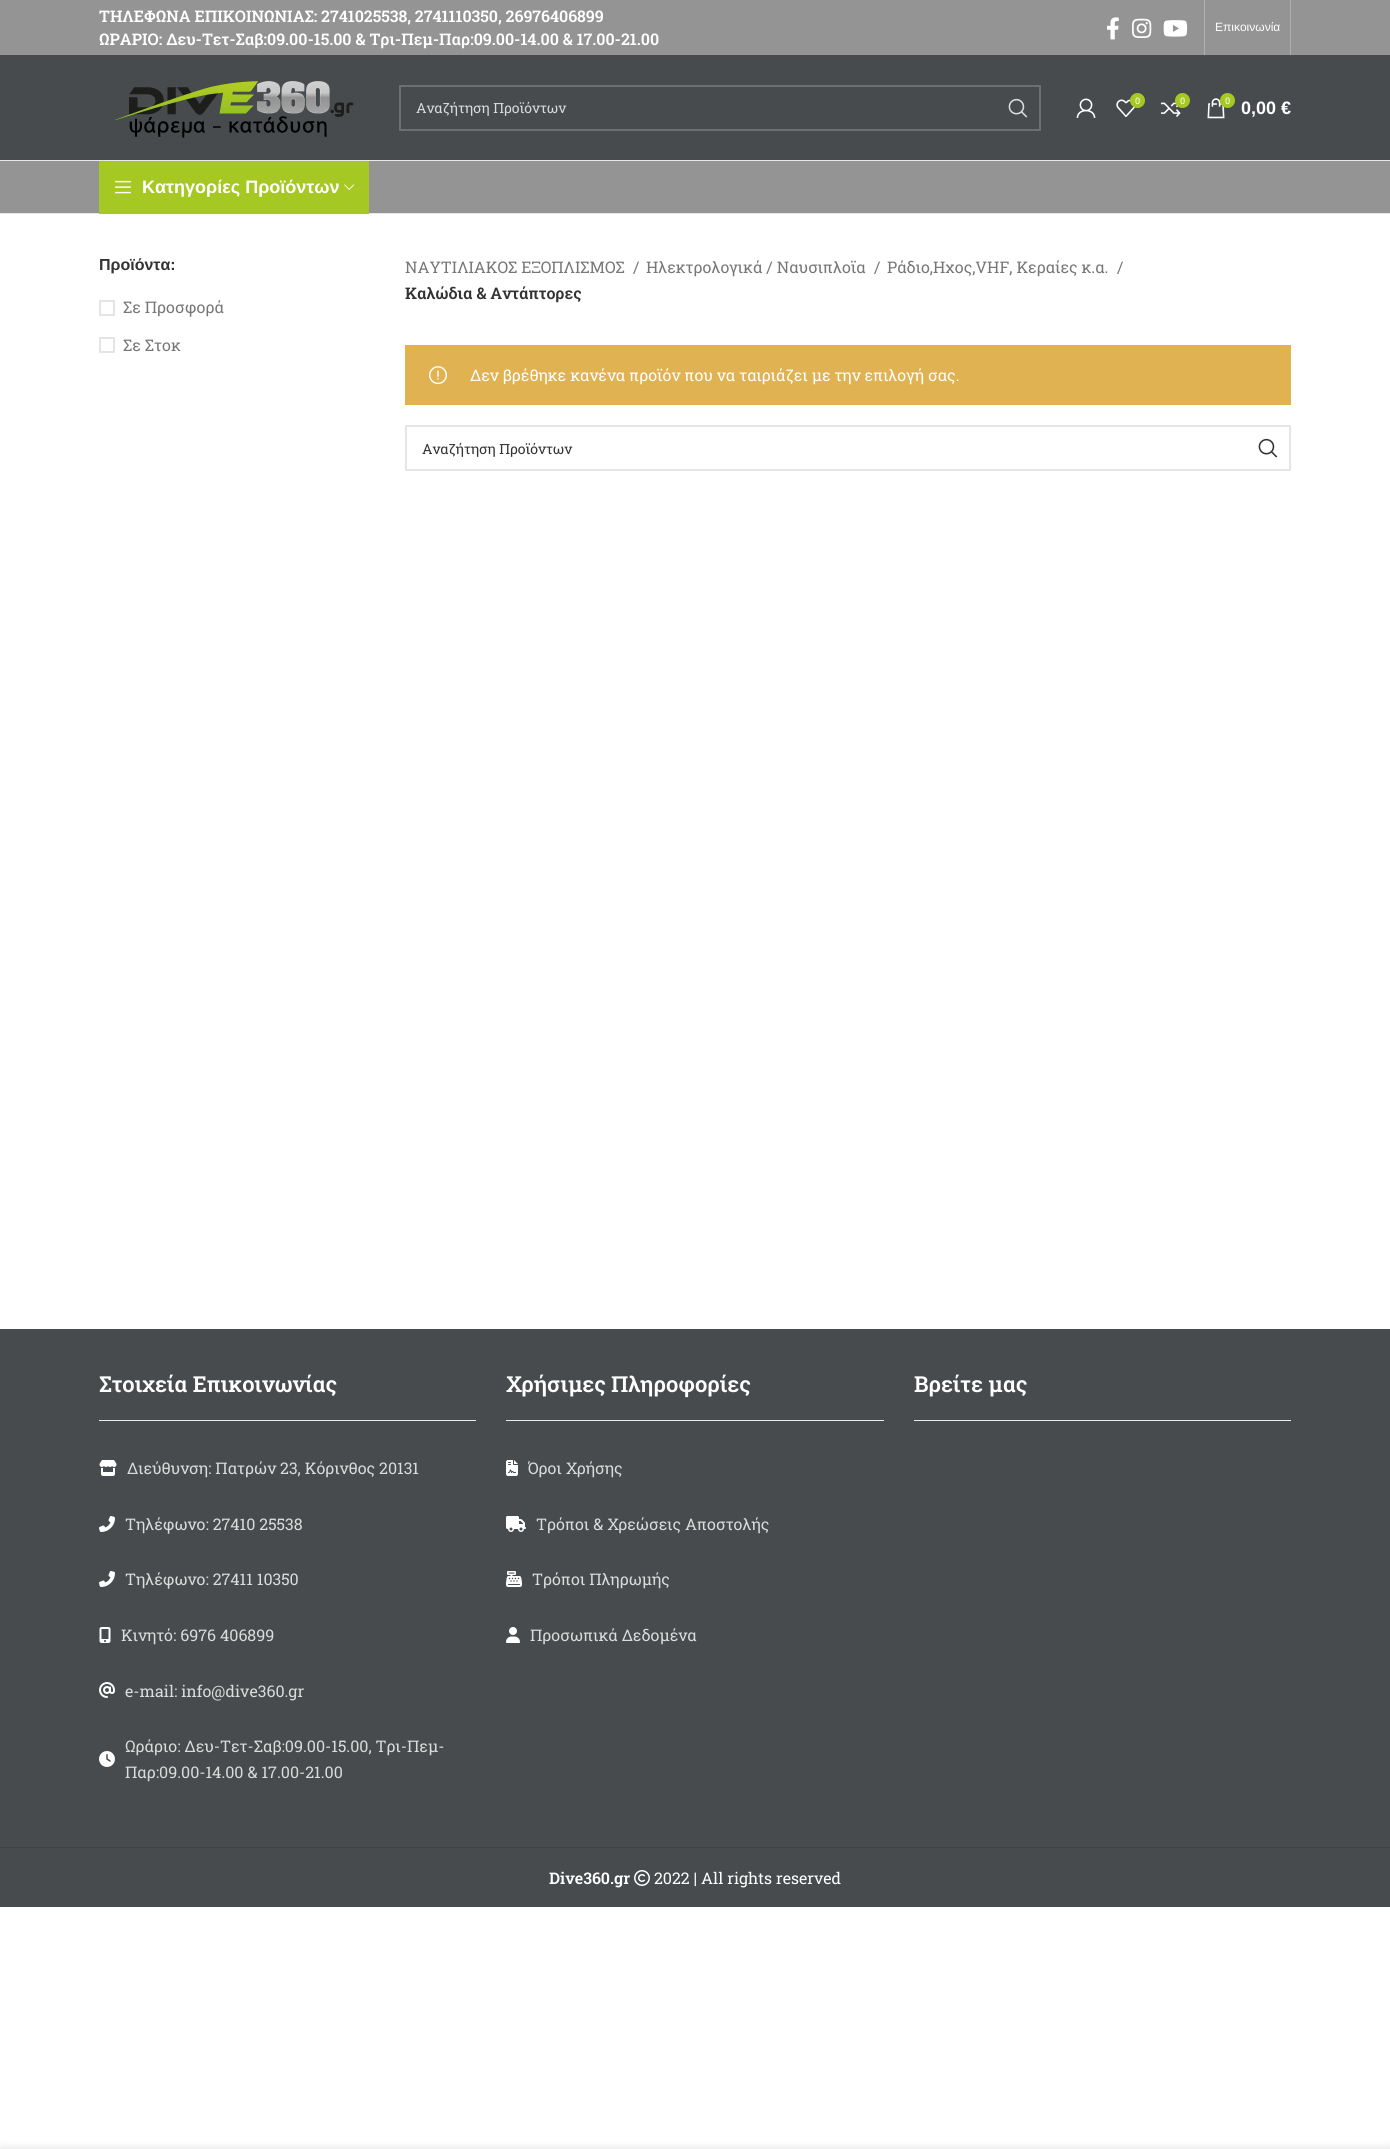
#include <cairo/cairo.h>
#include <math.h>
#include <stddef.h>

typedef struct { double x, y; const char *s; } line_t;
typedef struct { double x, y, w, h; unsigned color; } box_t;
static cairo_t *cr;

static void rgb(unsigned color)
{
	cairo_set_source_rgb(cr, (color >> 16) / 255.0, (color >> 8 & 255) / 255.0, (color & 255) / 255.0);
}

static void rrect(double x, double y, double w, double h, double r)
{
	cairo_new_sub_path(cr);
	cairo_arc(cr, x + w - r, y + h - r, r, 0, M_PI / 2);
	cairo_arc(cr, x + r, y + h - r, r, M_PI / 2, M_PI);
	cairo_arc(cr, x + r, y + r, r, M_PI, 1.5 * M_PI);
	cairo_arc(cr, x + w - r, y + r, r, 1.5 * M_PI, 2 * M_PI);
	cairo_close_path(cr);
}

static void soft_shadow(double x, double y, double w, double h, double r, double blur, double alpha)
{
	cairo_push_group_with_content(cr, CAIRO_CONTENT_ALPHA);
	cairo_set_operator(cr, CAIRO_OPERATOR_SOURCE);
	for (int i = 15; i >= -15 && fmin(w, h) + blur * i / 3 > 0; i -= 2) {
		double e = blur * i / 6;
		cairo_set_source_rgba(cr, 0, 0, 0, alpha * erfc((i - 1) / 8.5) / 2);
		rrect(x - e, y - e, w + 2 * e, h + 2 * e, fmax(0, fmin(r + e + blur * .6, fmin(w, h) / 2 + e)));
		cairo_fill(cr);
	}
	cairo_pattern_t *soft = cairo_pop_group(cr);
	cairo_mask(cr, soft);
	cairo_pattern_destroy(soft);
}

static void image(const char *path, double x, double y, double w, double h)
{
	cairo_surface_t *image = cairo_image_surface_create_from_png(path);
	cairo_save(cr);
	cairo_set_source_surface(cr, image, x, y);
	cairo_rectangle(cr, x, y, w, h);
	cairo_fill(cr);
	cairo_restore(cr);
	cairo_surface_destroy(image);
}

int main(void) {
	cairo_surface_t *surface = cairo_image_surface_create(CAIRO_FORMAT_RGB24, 1390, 2149);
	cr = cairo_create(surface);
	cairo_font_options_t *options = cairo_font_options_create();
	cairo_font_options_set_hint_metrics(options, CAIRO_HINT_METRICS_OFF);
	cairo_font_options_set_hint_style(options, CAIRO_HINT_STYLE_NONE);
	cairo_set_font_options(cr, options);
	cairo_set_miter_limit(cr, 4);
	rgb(0xffffff);
	cairo_paint(cr);
	rgb(0x949494);
	cairo_rectangle(cr, 0, 0, 1390, 55);
	cairo_fill(cr);
	image("img/1.png", 1107, 17, 12, 23);
	image("img/2.png", 1132, 18, 20, 20);
	image("img/3.png", 1163, 20, 25, 17);
	{
		static const box_t items[] = {
			{1204, 0, 1, 55, 0xafafaf},
			{1290, 0, 1, 55, 0xafafaf},
			{0, 55, 1390, 105, 0x474b4d},
			{0, 160, 1390, 1, 0xe8e8e8},
		};
		for (size_t i = 0; i < sizeof items / sizeof *items; i++) {
			rgb(items[i].color);
			cairo_rectangle(cr, items[i].x, items[i].y, items[i].w, items[i].h);
			cairo_fill(cr);
		}
	}
	image("img/4.png", 115, 81, 239, 57);
	cairo_rectangle(cr, 400, 86, 640, 44);
	rgb(0x6c6f71);
	cairo_stroke(cr);
	image("img/5.png", 1008, 98, 20, 20);
	image("img/6.png", 1076, 98, 20, 20);
	image("img/7.png", 1116, 99, 20, 18);
	rgb(0xa6c822);
	cairo_arc(cr, 1137.5, 100.5, 7.5, 0, 2 * M_PI);
	cairo_fill(cr);
	image("img/8.png", 1161, 102, 20, 15);
	cairo_arc(cr, 1182.5, 100.5, 7.5, 0, 2 * M_PI);
	cairo_fill(cr);
	image("img/9.png", 1207, 98, 18, 21);
	cairo_arc(cr, 1227.5, 100.5, 7.5, 0, 2 * M_PI);
	cairo_fill(cr);
	{
		static const box_t items[] = {
			{0, 161, 1390, 52, 0x949494},
			{0, 213, 1390, 1, 0xe8e8e8},
			{99, 161, 270, 53, 0xa6c822},
		};
		for (size_t i = 0; i < sizeof items / sizeof *items; i++) {
			rgb(items[i].color);
			cairo_rectangle(cr, items[i].x, items[i].y, items[i].w, items[i].h);
			cairo_fill(cr);
		}
	}
	image("img/10.png", 115, 180, 16, 14);
	image("img/11.png", 344, 184, 11, 6);
	cairo_rectangle(cr, 100, 301, 14, 14);
	rgb(0xe4e4e4);
	cairo_stroke(cr);
	cairo_rectangle(cr, 100, 338, 14, 14);
	cairo_stroke(cr);
	rgb(0xe0b252);
	cairo_rectangle(cr, 405, 345, 886, 60);
	cairo_fill(cr);
	image("img/12.png", 429, 366, 18, 19);
	cairo_rectangle(cr, 406, 426, 884, 44);
	rgb(0xe6e6e6);
	cairo_stroke(cr);
	image("img/13.png", 1258, 438, 20, 20);
	rgb(0x474b4d);
	cairo_rectangle(cr, 0, 1329, 1390, 578);
	cairo_fill(cr);
	rgb(0xebebeb);
	cairo_rectangle(cr, 99, 1420, 377, 1);
	cairo_fill(cr);
	image("img/14.png", 99, 1460, 18, 16);
	image("img/15.png", 99, 1516, 16, 16);
	image("img/15.png", 99, 1571, 16, 16);
	image("img/16.png", 99, 1627, 12, 16);
	image("img/17.png", 99, 1682, 16, 16);
	image("img/18.png", 99, 1751, 16, 16);
	cairo_rectangle(cr, 506, 1420, 378, 1);
	cairo_fill(cr);
	image("img/19.png", 506, 1460, 12, 16);
	image("img/20.png", 506, 1516, 20, 16);
	image("img/21.png", 506, 1571, 16, 16);
	image("img/22.png", 506, 1627, 14, 16);
	cairo_rectangle(cr, 914, 1420, 377, 1);
	cairo_fill(cr);
	rgb(0x3f4345);
	cairo_rectangle(cr, 0, 1847, 1390, 1);
	cairo_fill(cr);
	image("img/23.png", 634, 1870, 16, 16);
	rgb(0x000000);
	soft_shadow(0, 2149, 1390, 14, 0, 4.5, 0.14);
	cairo_select_font_face(cr, "Roboto Slab SemiBold", CAIRO_FONT_SLANT_NORMAL, CAIRO_FONT_WEIGHT_NORMAL);
	cairo_set_font_size(cr, 16);
	rgb(0xffffff);
	cairo_move_to(cr, 99, 22);
	cairo_show_text(cr, "ΤΗΛΕΦΩΝΑ ΕΠΙΚΟΙΝΩΝΙΑΣ: 2741025538, 2741110350, 26976406899");
	cairo_move_to(cr, 99, 45);
	cairo_show_text(cr, "ΩΡΑΡΙΟ: Δευ-Τετ-Σαβ:09.00-15.00 & Τρι-Πεμ-Παρ:09.00-14.00 & 17.00-21.00");
	cairo_select_font_face(cr, "Liberation Sans", CAIRO_FONT_SLANT_NORMAL, CAIRO_FONT_WEIGHT_NORMAL);
	cairo_set_font_size(cr, 12);
	cairo_move_to(cr, 1215, 31);
	cairo_show_text(cr, "Επικοινωνία");
	cairo_select_font_face(cr, "Roboto Slab", CAIRO_FONT_SLANT_NORMAL, CAIRO_FONT_WEIGHT_NORMAL);
	cairo_set_font_size(cr, 14);
	rgb(0xdadbdb);
	cairo_move_to(cr, 416, 113);
	cairo_show_text(cr, "Αναζήτηση Προϊόντων");
	cairo_set_font_size(cr, 9);
	rgb(0xffffff);
	{
		static const line_t items[] = {
			{1135, 104, "0"},
			{1180, 104, "0"},
			{1225, 104, "0"},
		};
		for (size_t i = 0; i < sizeof items / sizeof *items; i++) {
			cairo_move_to(cr, items[i].x, items[i].y);
			cairo_show_text(cr, items[i].s);
		}
	}
	cairo_select_font_face(cr, "Liberation Sans", CAIRO_FONT_SLANT_NORMAL, CAIRO_FONT_WEIGHT_BOLD);
	cairo_set_font_size(cr, 18);
	cairo_move_to(cr, 1241, 114);
	cairo_show_text(cr, "0,00 €");
	cairo_move_to(cr, 142, 193);
	cairo_show_text(cr, "Κατηγορίες Προϊόντων");
	cairo_set_font_size(cr, 16);
	rgb(0x333333);
	cairo_move_to(cr, 99, 270);
	cairo_show_text(cr, "Προϊόντα:");
	cairo_select_font_face(cr, "Roboto Slab", CAIRO_FONT_SLANT_NORMAL, CAIRO_FONT_WEIGHT_NORMAL);
	rgb(0x777777);
	{
		static const line_t items[] = {
			{123, 313, "Σε Προσφορά"},
			{123, 351, "Σε Στοκ"},
			{405, 273, "ΝΑΥΤΙΛΙΑΚΟΣ ΕΞΟΠΛΙΣΜΟΣ"},
			{633, 273, "/"},
			{646, 273, "Ηλεκτρολογικά / Ναυσιπλοϊα"},
			{874, 273, "/"},
			{887, 273, "Ράδιο,Ηχος,VHF, Κεραίες κ.α."},
			{1117, 273, "/"},
		};
		for (size_t i = 0; i < sizeof items / sizeof *items; i++) {
			cairo_move_to(cr, items[i].x, items[i].y);
			cairo_show_text(cr, items[i].s);
		}
	}
	cairo_select_font_face(cr, "Roboto Slab SemiBold", CAIRO_FONT_SLANT_NORMAL, CAIRO_FONT_WEIGHT_NORMAL);
	rgb(0x333333);
	cairo_move_to(cr, 405, 299);
	cairo_show_text(cr, "Καλώδια & Αντάπτορες");
	cairo_select_font_face(cr, "Roboto Slab", CAIRO_FONT_SLANT_NORMAL, CAIRO_FONT_WEIGHT_NORMAL);
	rgb(0xffffff);
	cairo_move_to(cr, 470, 381);
	cairo_show_text(cr, "Δεν βρέθηκε κανένα προϊόν που να ταιριάζει με την επιλογή σας.");
	cairo_set_font_size(cr, 14);
	rgb(0x333333);
	cairo_move_to(cr, 422, 454);
	cairo_show_text(cr, "Αναζήτηση Προϊόντων");
	cairo_select_font_face(cr, "Roboto Slab SemiBold", CAIRO_FONT_SLANT_NORMAL, CAIRO_FONT_WEIGHT_NORMAL);
	cairo_set_font_size(cr, 22);
	rgb(0xffffff);
	cairo_move_to(cr, 99, 1392);
	cairo_show_text(cr, "Στοιχεία Επικοινωνίας");
	cairo_select_font_face(cr, "Roboto Slab", CAIRO_FONT_SLANT_NORMAL, CAIRO_FONT_WEIGHT_NORMAL);
	cairo_set_font_size(cr, 16);
	rgb(0xdadbdb);
	{
		static const line_t items[] = {
			{127, 1474, "Διεύθυνση: Πατρών 23, Κόρινθος 20131"},
			{125, 1530, "Τηλέφωνο: 27410 25538"},
			{125, 1585, "Τηλέφωνο: 27411 10350"},
			{121, 1641, "Κινητό: 6976 406899"},
			{125, 1697, "e-mail: info@dive360.gr"},
			{125, 1752, "Ωράριο: Δευ-Τετ-Σαβ:09.00-15.00, Τρι-Πεμ-"},
			{125, 1778, "Παρ:09.00-14.00 & 17.00-21.00"},
		};
		for (size_t i = 0; i < sizeof items / sizeof *items; i++) {
			cairo_move_to(cr, items[i].x, items[i].y);
			cairo_show_text(cr, items[i].s);
		}
	}
	cairo_select_font_face(cr, "Roboto Slab SemiBold", CAIRO_FONT_SLANT_NORMAL, CAIRO_FONT_WEIGHT_NORMAL);
	cairo_set_font_size(cr, 22);
	rgb(0xffffff);
	cairo_move_to(cr, 506, 1392);
	cairo_show_text(cr, "Χρήσιμες Πληροφορίες");
	cairo_select_font_face(cr, "Roboto Slab", CAIRO_FONT_SLANT_NORMAL, CAIRO_FONT_WEIGHT_NORMAL);
	cairo_set_font_size(cr, 16);
	rgb(0xdadbdb);
	{
		static const line_t items[] = {
			{528, 1474, "Όροι Χρήσης"},
			{536, 1530, "Τρόποι & Χρεώσεις Αποστολής"},
			{532, 1585, "Τρόποι Πληρωμής"},
			{530, 1641, "Προσωπικά Δεδομένα"},
		};
		for (size_t i = 0; i < sizeof items / sizeof *items; i++) {
			cairo_move_to(cr, items[i].x, items[i].y);
			cairo_show_text(cr, items[i].s);
		}
	}
	cairo_select_font_face(cr, "Roboto Slab SemiBold", CAIRO_FONT_SLANT_NORMAL, CAIRO_FONT_WEIGHT_NORMAL);
	cairo_set_font_size(cr, 22);
	rgb(0xffffff);
	cairo_move_to(cr, 914, 1392);
	cairo_show_text(cr, "Βρείτε μας");
	cairo_set_font_size(cr, 16);
	cairo_move_to(cr, 549, 1884);
	cairo_show_text(cr, "Dive360.gr");
	cairo_select_font_face(cr, "Roboto Slab", CAIRO_FONT_SLANT_NORMAL, CAIRO_FONT_WEIGHT_NORMAL);
	cairo_move_to(cr, 654, 1884);
	cairo_show_text(cr, "2022 | All rights reserved");
	cairo_surface_write_to_png(surface, "page.png");
	cairo_font_options_destroy(options);
	cairo_destroy(cr);
	cairo_surface_destroy(surface);
	return 0;
}
